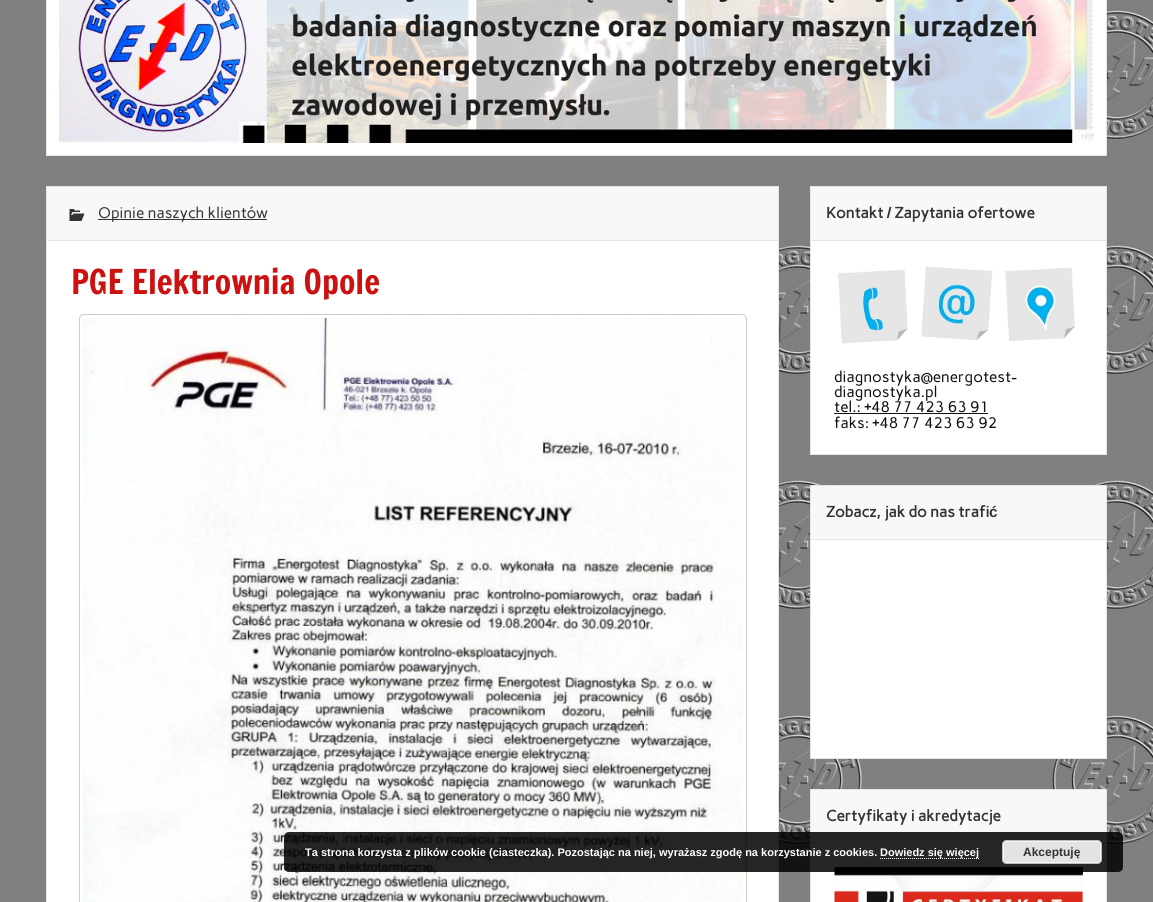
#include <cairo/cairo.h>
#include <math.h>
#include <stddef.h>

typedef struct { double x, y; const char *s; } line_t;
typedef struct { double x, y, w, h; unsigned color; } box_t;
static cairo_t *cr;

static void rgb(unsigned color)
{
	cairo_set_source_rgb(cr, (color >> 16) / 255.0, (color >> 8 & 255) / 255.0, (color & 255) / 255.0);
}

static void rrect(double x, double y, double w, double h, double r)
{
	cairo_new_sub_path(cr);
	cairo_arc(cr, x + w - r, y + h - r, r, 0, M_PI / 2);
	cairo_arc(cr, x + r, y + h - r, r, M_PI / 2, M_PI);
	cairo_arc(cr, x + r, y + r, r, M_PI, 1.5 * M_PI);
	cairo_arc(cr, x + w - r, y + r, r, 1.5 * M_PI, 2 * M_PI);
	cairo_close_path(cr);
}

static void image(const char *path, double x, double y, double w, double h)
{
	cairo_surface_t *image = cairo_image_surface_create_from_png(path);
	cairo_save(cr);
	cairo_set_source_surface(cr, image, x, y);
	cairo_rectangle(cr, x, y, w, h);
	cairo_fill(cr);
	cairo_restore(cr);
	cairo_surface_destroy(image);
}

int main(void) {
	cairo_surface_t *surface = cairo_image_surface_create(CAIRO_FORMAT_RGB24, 1153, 902);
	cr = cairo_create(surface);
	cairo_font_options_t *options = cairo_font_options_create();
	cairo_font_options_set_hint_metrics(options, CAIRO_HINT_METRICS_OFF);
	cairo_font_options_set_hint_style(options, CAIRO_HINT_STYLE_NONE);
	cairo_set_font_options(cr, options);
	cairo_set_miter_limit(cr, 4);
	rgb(0xffffff);
	cairo_paint(cr);
	image("img/1.png", 0, 0, 1153, 902);
	rgb(0xffffff);
	cairo_rectangle(cr, 46.5, -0.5, 1060, 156);
	cairo_fill_preserve(cr);
	rgb(0xe5e5e5);
	cairo_set_line_width(cr, 1);
	cairo_stroke(cr);
	image("img/2.png", 59, 0, 1035, 143);
	rgb(0xf8f8f8);
	cairo_rectangle(cr, 47, 187, 731, 53);
	cairo_fill(cr);
	cairo_rectangle(cr, 46.5, 186.5, 732, 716);
	rgb(0xe5e5e5);
	cairo_stroke(cr);
	image("img/3.png", 69, 209, 16, 12);
	{
		static const box_t items[] = {
			{98, 219, 169, 1, 0x333333},
			{47, 241, 731, 661, 0xffffff},
			{47, 240, 731, 1, 0xe5e5e5},
		};
		for (size_t i = 0; i < sizeof items / sizeof *items; i++) {
			rgb(items[i].color);
			cairo_rectangle(cr, items[i].x, items[i].y, items[i].w, items[i].h);
			cairo_fill(cr);
		}
	}
	rrect(79.5, 314.5, 667, 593, 4.5);
	rgb(0xcccccc);
	cairo_stroke(cr);
	image("img/4.png", 83, 318, 660, 584);
	rgb(0xffffff);
	cairo_rectangle(cr, 811, 241, 295, 213);
	cairo_fill(cr);
	cairo_rectangle(cr, 810.5, 186.5, 296, 268);
	rgb(0xe5e5e5);
	cairo_stroke(cr);
	rgb(0xf8f8f8);
	cairo_rectangle(cr, 811, 187, 295, 53);
	cairo_fill(cr);
	rgb(0xe5e5e5);
	cairo_rectangle(cr, 811, 240, 295, 1);
	cairo_fill(cr);
	image("img/5.png", 838, 266, 237, 78);
	rgb(0x111111);
	cairo_rectangle(cr, 834, 413, 154, 1);
	cairo_fill(cr);
	rgb(0xffffff);
	cairo_rectangle(cr, 811, 540, 295, 218);
	cairo_fill(cr);
	cairo_rectangle(cr, 810.5, 485.5, 296, 273);
	rgb(0xe5e5e5);
	cairo_stroke(cr);
	{
		static const box_t items[] = {
			{811, 486, 295, 53, 0xf8f8f8},
			{811, 539, 295, 1, 0xe5e5e5},
			{811, 844, 295, 58, 0xffffff},
		};
		for (size_t i = 0; i < sizeof items / sizeof *items; i++) {
			rgb(items[i].color);
			cairo_rectangle(cr, items[i].x, items[i].y, items[i].w, items[i].h);
			cairo_fill(cr);
		}
	}
	cairo_rectangle(cr, 810.5, 789.5, 296, 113);
	rgb(0xe5e5e5);
	cairo_stroke(cr);
	rgb(0xf8f8f8);
	cairo_rectangle(cr, 811, 790, 295, 53);
	cairo_fill(cr);
	rgb(0xe5e5e5);
	cairo_rectangle(cr, 811, 843, 295, 1);
	cairo_fill(cr);
	image("img/6.png", 834, 867, 249, 35);
	cairo_set_source_rgba(cr, 0, 0, 0, 0.85);
	rrect(284, 832, 839, 40, 5);
	cairo_fill(cr);
	cairo_new_path(cr);
	cairo_move_to(cr, 880, 858.5);
	cairo_line_to(cr, 979, 858.5);
	rgb(0xffffff);
	cairo_set_dash(cr, (double[]){1, 1}, 2, 0);
	cairo_stroke(cr);
	rgb(0xe3e3e3);
	rrect(1002, 840, 100, 24, 5);
	cairo_fill(cr);
	rrect(1003.5, 841.5, 97, 21, 3.5);
	rgb(0xf6f6f6);
	cairo_set_dash(cr, NULL, 0, 0);
	cairo_stroke(cr);
	rrect(1002.5, 840.5, 99, 23, 4.5);
	rgb(0xbbbbbb);
	cairo_stroke(cr);
	cairo_select_font_face(cr, "Carme", CAIRO_FONT_SLANT_NORMAL, CAIRO_FONT_WEIGHT_NORMAL);
	cairo_set_font_size(cr, 15.25);
	rgb(0x333333);
	cairo_move_to(cr, 98, 218);
	cairo_show_text(cr, "Opinie naszych klientów");
	cairo_select_font_face(cr, "Francois One", CAIRO_FONT_SLANT_NORMAL, CAIRO_FONT_WEIGHT_NORMAL);
	cairo_set_font_size(cr, 33.5);
	rgb(0xcc1111);
	cairo_move_to(cr, 71, 294);
	cairo_show_text(cr, "PGE Elektrownia Opole");
	cairo_select_font_face(cr, "Carme", CAIRO_FONT_SLANT_NORMAL, CAIRO_FONT_WEIGHT_BOLD);
	cairo_set_font_size(cr, 15.25);
	rgb(0x333333);
	cairo_move_to(cr, 826, 218);
	cairo_show_text(cr, "Kontakt / Zapytania ofertowe");
	cairo_select_font_face(cr, "Carme", CAIRO_FONT_SLANT_NORMAL, CAIRO_FONT_WEIGHT_NORMAL);
	rgb(0x111111);
	{
		static const line_t items[] = {
			{834, 382, "diagnostyka@energotest-"},
			{834, 397, "diagnostyka.pl"},
			{834, 412, "tel.: +48 77 423 63 91"},
			{834, 428, "faks: +48 77 423 63 92"},
		};
		for (size_t i = 0; i < sizeof items / sizeof *items; i++) {
			cairo_move_to(cr, items[i].x, items[i].y);
			cairo_show_text(cr, items[i].s);
		}
	}
	cairo_select_font_face(cr, "Carme", CAIRO_FONT_SLANT_NORMAL, CAIRO_FONT_WEIGHT_BOLD);
	rgb(0x333333);
	cairo_move_to(cr, 826, 517);
	cairo_show_text(cr, "Zobacz, jak do nas trafi");
	cairo_select_font_face(cr, "Liberation Sans", CAIRO_FONT_SLANT_NORMAL, CAIRO_FONT_WEIGHT_BOLD);
	cairo_move_to(cr, 989, 517);
	cairo_show_text(cr, "ć");
	cairo_select_font_face(cr, "Carme", CAIRO_FONT_SLANT_NORMAL, CAIRO_FONT_WEIGHT_BOLD);
	cairo_move_to(cr, 826, 821);
	cairo_show_text(cr, "Certyfikaty i akredytacje");
	cairo_select_font_face(cr, "Liberation Sans", CAIRO_FONT_SLANT_NORMAL, CAIRO_FONT_WEIGHT_BOLD);
	cairo_set_font_size(cr, 11);
	rgb(0xffffff);
	cairo_move_to(cr, 305, 856);
	cairo_show_text(cr, "Ta strona korzysta z plików cookie (ciasteczka). Pozostając na niej, wyrażasz zgodę na korzystanie z cookies.");
	cairo_move_to(cr, 880, 856);
	cairo_show_text(cr, "Dowiedz się więcej");
	cairo_set_font_size(cr, 12);
	rgb(0x333333);
	cairo_move_to(cr, 1023, 856);
	cairo_show_text(cr, "Akceptuję");
	cairo_surface_write_to_png(surface, "page.png");
	cairo_font_options_destroy(options);
	cairo_destroy(cr);
	cairo_surface_destroy(surface);
	return 0;
}
